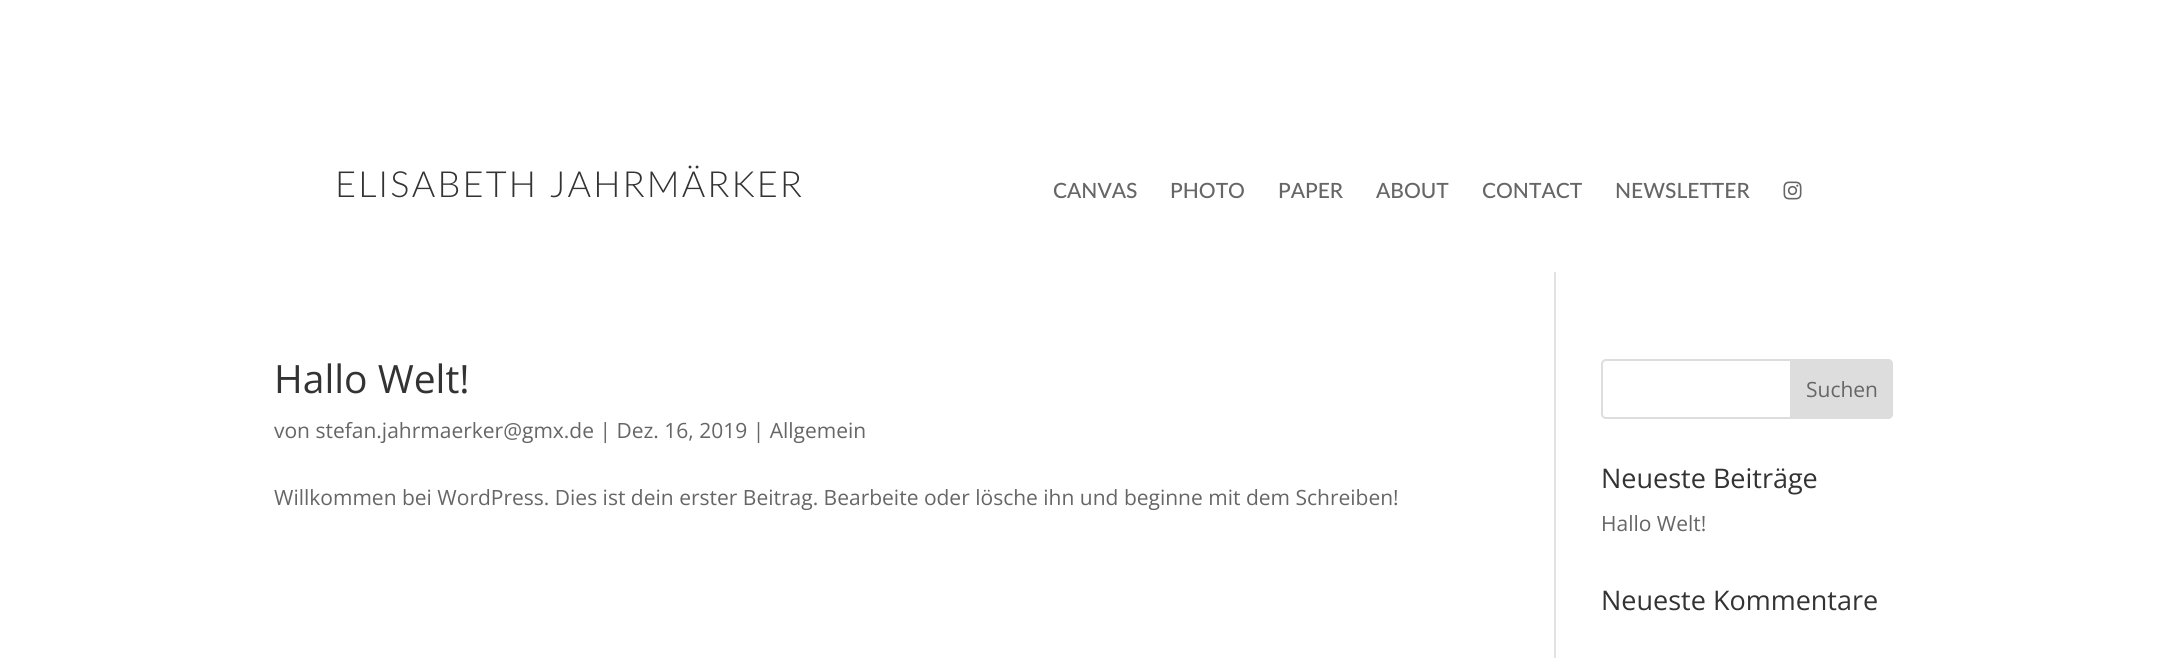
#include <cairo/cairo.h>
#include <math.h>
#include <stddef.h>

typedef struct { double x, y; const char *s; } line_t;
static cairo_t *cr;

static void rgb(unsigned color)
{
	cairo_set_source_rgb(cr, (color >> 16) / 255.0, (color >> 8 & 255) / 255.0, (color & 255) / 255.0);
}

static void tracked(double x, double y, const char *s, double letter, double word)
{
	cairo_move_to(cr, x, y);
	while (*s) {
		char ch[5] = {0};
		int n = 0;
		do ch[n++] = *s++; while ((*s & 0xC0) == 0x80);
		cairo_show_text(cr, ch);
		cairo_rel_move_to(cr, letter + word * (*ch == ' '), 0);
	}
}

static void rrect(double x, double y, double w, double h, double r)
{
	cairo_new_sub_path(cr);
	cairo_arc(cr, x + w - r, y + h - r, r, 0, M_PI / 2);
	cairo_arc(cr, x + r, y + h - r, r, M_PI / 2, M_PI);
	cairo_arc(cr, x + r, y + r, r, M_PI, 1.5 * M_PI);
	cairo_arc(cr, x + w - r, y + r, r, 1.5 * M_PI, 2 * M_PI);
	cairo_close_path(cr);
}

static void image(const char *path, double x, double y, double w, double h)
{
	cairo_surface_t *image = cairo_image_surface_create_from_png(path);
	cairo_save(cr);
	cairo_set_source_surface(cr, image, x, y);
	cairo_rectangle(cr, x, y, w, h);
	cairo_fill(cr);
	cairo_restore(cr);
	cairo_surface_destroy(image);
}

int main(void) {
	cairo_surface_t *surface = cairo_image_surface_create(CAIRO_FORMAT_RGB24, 2167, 658);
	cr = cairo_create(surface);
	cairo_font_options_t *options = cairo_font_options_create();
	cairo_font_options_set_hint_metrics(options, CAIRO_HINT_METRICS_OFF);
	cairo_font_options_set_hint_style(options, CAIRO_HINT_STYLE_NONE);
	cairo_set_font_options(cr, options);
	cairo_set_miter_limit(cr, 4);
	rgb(0xffffff);
	cairo_paint(cr);
	image("img/1.png", 1783, 181, 19, 19);
	rgb(0xe2e2e2);
	cairo_rectangle(cr, 1554, 272, 2, 386);
	cairo_fill(cr);
	rrect(1602, 360, 290, 58, 4);
	rgb(0xdddddd);
	cairo_stroke(cr);
	cairo_new_path(cr);
	cairo_move_to(cr, 1791, 360);
	cairo_line_to(cr, 1888, 360);
	cairo_curve_to(cr, 1890, 360, 1892, 362, 1892, 364);
	cairo_line_to(cr, 1892, 414);
	cairo_curve_to(cr, 1892, 416, 1890, 418, 1888, 418);
	cairo_line_to(cr, 1791, 418);
	cairo_close_path(cr);
	cairo_fill_preserve(cr);
	cairo_stroke(cr);
	cairo_select_font_face(cr, "Lato Light", CAIRO_FONT_SLANT_NORMAL, CAIRO_FONT_WEIGHT_NORMAL);
	cairo_set_font_size(cr, 36);
	rgb(0x333333);
	tracked(335, 197, "ELISABETH JAHRMÄRKER", 2.25, 0);
	cairo_select_font_face(cr, "Lato Medium", CAIRO_FONT_SLANT_NORMAL, CAIRO_FONT_WEIGHT_NORMAL);
	cairo_set_font_size(cr, 21);
	rgb(0x666666);
	{
		static const line_t items[] = {
			{1053, 198, "CANVAS"},
			{1170, 198, "PHOTO"},
			{1278, 198, "PAPER"},
			{1376, 198, "ABOUT"},
			{1482, 198, "CONTACT"},
			{1615, 198, "NEWSLETTER"},
		};
		for (size_t i = 0; i < sizeof items / sizeof *items; i++) {
			cairo_move_to(cr, items[i].x, items[i].y);
			cairo_show_text(cr, items[i].s);
		}
	}
	cairo_select_font_face(cr, "Open Sans", CAIRO_FONT_SLANT_NORMAL, CAIRO_FONT_WEIGHT_NORMAL);
	cairo_set_font_size(cr, 39);
	rgb(0x333333);
	cairo_move_to(cr, 274, 393);
	cairo_show_text(cr, "Hallo Welt!");
	cairo_set_font_size(cr, 21);
	rgb(0x666666);
	{
		static const line_t items[] = {
			{274, 438, "von stefan.jahrmaerker@gmx.de | Dez. 16, 2019 | Allgemein"},
			{274, 505, "Willkommen bei WordPress. Dies ist dein erster Beitrag. Bearbeite oder lösche ihn und beginne mit dem Schreiben!"},
			{1806, 397, "Suchen"},
		};
		for (size_t i = 0; i < sizeof items / sizeof *items; i++) {
			cairo_move_to(cr, items[i].x, items[i].y);
			cairo_show_text(cr, items[i].s);
		}
	}
	cairo_set_font_size(cr, 27);
	rgb(0x333333);
	cairo_move_to(cr, 1601, 488);
	cairo_show_text(cr, "Neueste Beiträge");
	cairo_set_font_size(cr, 21);
	rgb(0x666666);
	cairo_move_to(cr, 1601, 531);
	cairo_show_text(cr, "Hallo Welt!");
	cairo_set_font_size(cr, 27);
	rgb(0x333333);
	cairo_move_to(cr, 1601, 610);
	cairo_show_text(cr, "Neueste Kommentare");
	cairo_surface_write_to_png(surface, "page.png");
	cairo_font_options_destroy(options);
	cairo_destroy(cr);
	cairo_surface_destroy(surface);
	return 0;
}
